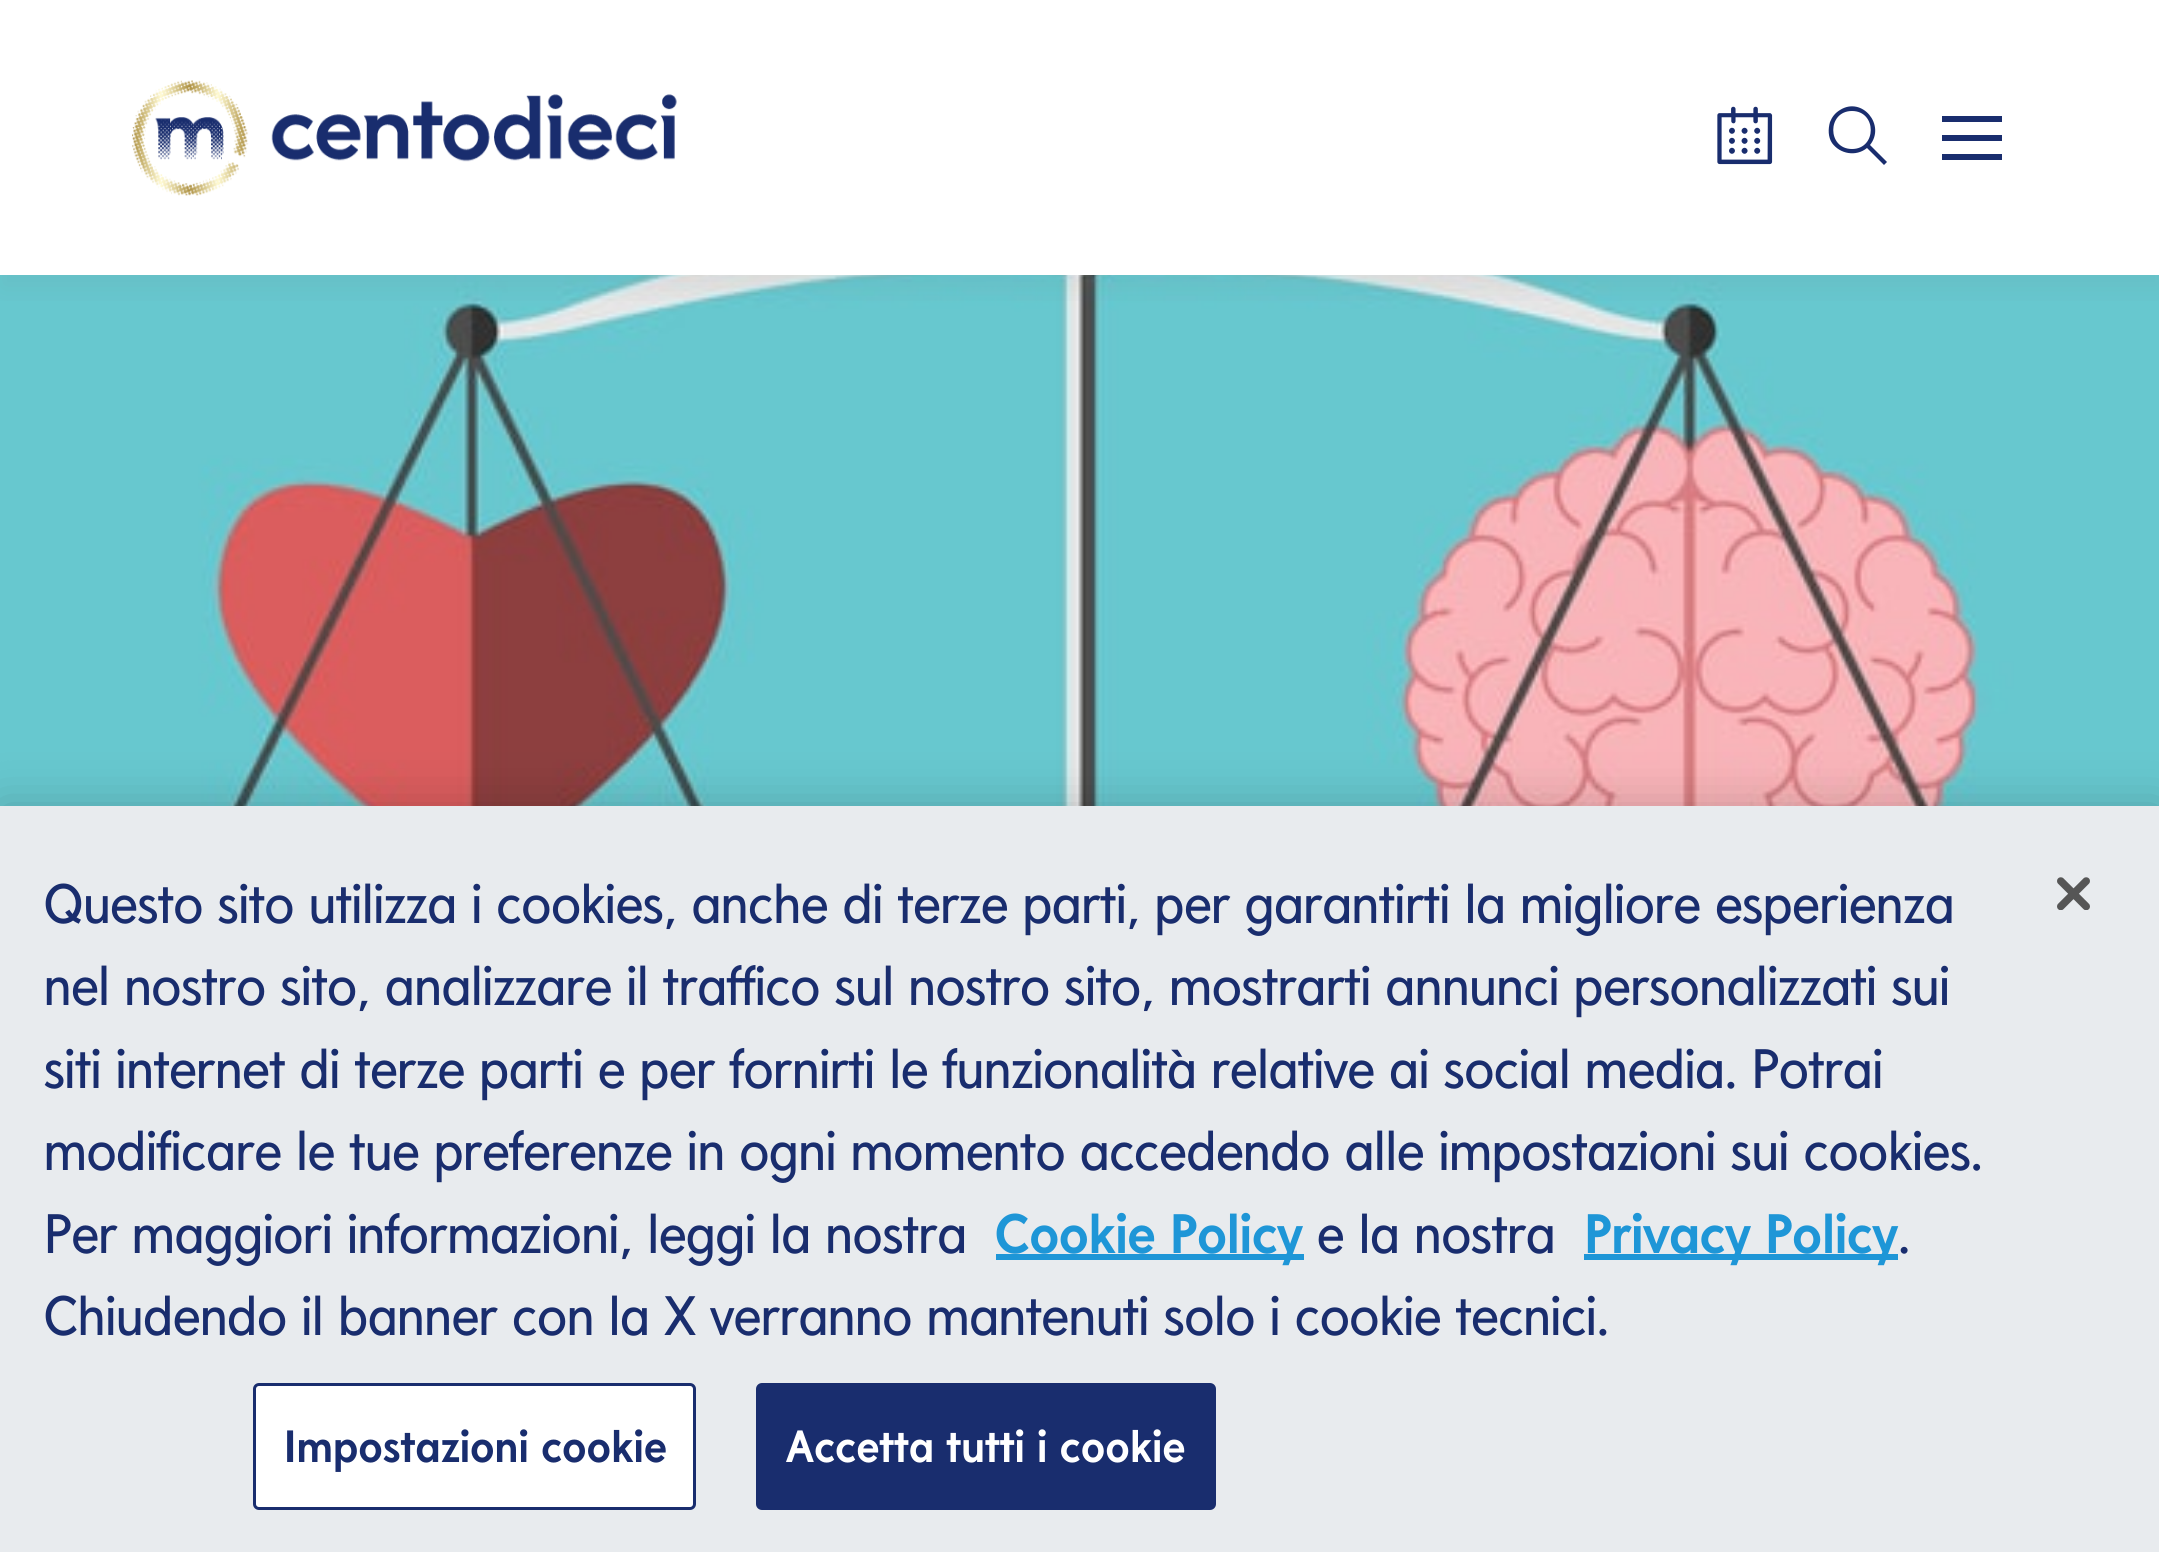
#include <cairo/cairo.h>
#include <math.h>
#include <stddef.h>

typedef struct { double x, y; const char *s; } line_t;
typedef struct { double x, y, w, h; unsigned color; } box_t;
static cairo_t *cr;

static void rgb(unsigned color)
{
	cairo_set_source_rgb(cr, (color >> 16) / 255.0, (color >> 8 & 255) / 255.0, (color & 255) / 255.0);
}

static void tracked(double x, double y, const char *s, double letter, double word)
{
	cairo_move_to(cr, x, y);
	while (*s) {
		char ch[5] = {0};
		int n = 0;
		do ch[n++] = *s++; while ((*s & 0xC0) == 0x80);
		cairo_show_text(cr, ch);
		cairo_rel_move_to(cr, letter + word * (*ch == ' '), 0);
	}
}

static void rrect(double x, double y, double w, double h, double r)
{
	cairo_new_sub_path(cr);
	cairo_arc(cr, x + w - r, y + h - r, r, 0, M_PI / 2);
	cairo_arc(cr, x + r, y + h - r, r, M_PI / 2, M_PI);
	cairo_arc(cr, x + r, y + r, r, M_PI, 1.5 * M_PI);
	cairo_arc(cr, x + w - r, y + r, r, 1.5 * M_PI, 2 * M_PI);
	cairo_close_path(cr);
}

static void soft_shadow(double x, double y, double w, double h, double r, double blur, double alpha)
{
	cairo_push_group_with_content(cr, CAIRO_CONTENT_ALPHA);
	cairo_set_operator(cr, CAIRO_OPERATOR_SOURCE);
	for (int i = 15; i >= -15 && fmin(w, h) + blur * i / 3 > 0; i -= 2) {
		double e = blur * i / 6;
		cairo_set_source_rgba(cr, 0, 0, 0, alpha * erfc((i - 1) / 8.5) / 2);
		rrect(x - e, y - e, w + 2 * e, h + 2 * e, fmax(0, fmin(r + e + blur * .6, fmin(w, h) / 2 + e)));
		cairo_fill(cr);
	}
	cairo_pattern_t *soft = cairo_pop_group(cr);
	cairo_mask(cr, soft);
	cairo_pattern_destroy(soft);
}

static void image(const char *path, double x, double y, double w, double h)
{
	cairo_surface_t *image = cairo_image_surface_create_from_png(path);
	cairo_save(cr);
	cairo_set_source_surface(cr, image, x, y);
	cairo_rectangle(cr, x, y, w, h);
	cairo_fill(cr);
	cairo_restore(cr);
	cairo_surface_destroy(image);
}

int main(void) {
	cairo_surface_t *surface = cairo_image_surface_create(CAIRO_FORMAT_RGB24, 2159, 1552);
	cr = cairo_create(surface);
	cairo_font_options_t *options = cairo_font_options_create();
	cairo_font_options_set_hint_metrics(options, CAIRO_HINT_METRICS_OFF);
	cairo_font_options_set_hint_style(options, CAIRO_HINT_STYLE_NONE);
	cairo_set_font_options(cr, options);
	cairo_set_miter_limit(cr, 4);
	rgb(0xffffff);
	cairo_paint(cr);
	image("img/3.png", 0, 275, 2159, 531);
	cairo_save(cr);
	cairo_rectangle(cr, 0, 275, 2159, 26);
	cairo_clip(cr);
	rgb(0x5f696e);
	soft_shadow(0, 14, 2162, 275, 0, 14, 0.1);
	cairo_restore(cr);
	image("img/1.png", 132, 80, 545, 116);
	image("img/2.png", 1717, 106, 56, 59);
	rgb(0x192d6e);
	cairo_new_path(cr);
	cairo_move_to(cr, 1870, 145);
	cairo_curve_to(cr, 1886, 125, 1862, 96, 1840, 110);
	cairo_curve_to(cr, 1835, 113, 1832, 117, 1830, 122);
	cairo_curve_to(cr, 1828, 129, 1828, 137, 1832, 143);
	cairo_curve_to(cr, 1840, 154, 1856, 157, 1867, 148);
	cairo_line_to(cr, 1884, 165);
	cairo_line_to(cr, 1887, 162);
	cairo_close_path(cr);
	cairo_move_to(cr, 1852, 149);
	cairo_curve_to(cr, 1827, 149, 1827, 111, 1852, 111);
	cairo_curve_to(cr, 1877, 111, 1877, 149, 1852, 149);
	cairo_close_path(cr);
	cairo_fill(cr);
	{
		static const box_t items[] = {
			{1942, 116, 60, 6, 0x192d6e},
			{1942, 135, 60, 6, 0x192d6e},
			{1942, 154, 60, 6, 0x192d6e},
		};
		for (size_t i = 0; i < sizeof items / sizeof *items; i++) {
			rgb(items[i].color);
			cairo_rectangle(cr, items[i].x, items[i].y, items[i].w, items[i].h);
			cairo_fill(cr);
		}
	}
	rgb(0x000000);
	soft_shadow(0, 806, 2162, 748, 0, 25, 0.2);
	{
		static const box_t items[] = {
			{0, 806, 2159, 746, 0xe8ebee},
			{996, 1254, 308, 6, 0x1e96d7},
			{1584, 1254, 314, 6, 0x1e96d7},
		};
		for (size_t i = 0; i < sizeof items / sizeof *items; i++) {
			rgb(items[i].color);
			cairo_rectangle(cr, items[i].x, items[i].y, items[i].w, items[i].h);
			cairo_fill(cr);
		}
	}
	rgb(0xffffff);
	rrect(254.5, 1384.5, 440, 124, 4.5);
	cairo_fill_preserve(cr);
	rgb(0x192d6e);
	cairo_set_line_width(cr, 3);
	cairo_stroke(cr);
	rrect(757.5, 1384.5, 457, 124, 4.5);
	cairo_fill_preserve(cr);
	cairo_stroke(cr);
	image("img/4.png", 2057, 877, 33, 33);
	cairo_select_font_face(cr, "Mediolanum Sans", CAIRO_FONT_SLANT_NORMAL, CAIRO_FONT_WEIGHT_NORMAL);
	cairo_set_font_size(cr, 55);
	{
		static const line_t items[] = {
			{44, 923, "Questo sito utilizza i cookies, anche di terze parti, per garantirti la migliore esperienza"},
			{44, 1005, "nel nostro sito, analizzare il traffico sul nostro sito, mostrarti annunci personalizzati sui"},
			{44, 1088, "siti internet di terze parti e per fornirti le funzionalità relative ai social media. Potrai"},
			{44, 1170, "modificare le tue preferenze in ogni momento accedendo alle impostazioni sui cookies."},
			{44, 1253, "Per maggiori informazioni, leggi la nostra"},
		};
		for (size_t i = 0; i < sizeof items / sizeof *items; i++) {
			cairo_move_to(cr, items[i].x, items[i].y);
			cairo_show_text(cr, items[i].s);
		}
	}
	cairo_select_font_face(cr, "Mediolanum Sans", CAIRO_FONT_SLANT_NORMAL, CAIRO_FONT_WEIGHT_BOLD);
	rgb(0x1e96d7);
	cairo_move_to(cr, 995, 1253);
	cairo_show_text(cr, "Cookie Policy");
	cairo_select_font_face(cr, "Mediolanum Sans", CAIRO_FONT_SLANT_NORMAL, CAIRO_FONT_WEIGHT_NORMAL);
	rgb(0x192d6e);
	cairo_move_to(cr, 1317, 1253);
	cairo_show_text(cr, "e la nostra");
	cairo_select_font_face(cr, "Mediolanum Sans", CAIRO_FONT_SLANT_NORMAL, CAIRO_FONT_WEIGHT_BOLD);
	rgb(0x1e96d7);
	cairo_move_to(cr, 1584, 1253);
	cairo_show_text(cr, "Privacy Policy");
	cairo_select_font_face(cr, "Mediolanum Sans", CAIRO_FONT_SLANT_NORMAL, CAIRO_FONT_WEIGHT_NORMAL);
	rgb(0x192d6e);
	cairo_move_to(cr, 1898, 1253);
	cairo_show_text(cr, ".");
	cairo_move_to(cr, 44, 1335);
	cairo_show_text(cr, "Chiudendo il banner con la X verranno mantenuti solo i cookie tecnici.");
	cairo_select_font_face(cr, "Mediolanum Sans", CAIRO_FONT_SLANT_NORMAL, CAIRO_FONT_WEIGHT_BOLD);
	cairo_set_font_size(cr, 44.75);
	tracked(284, 1462, "Impostazioni cookie", 0.45, 0);
	rgb(0xffffff);
	tracked(786, 1462, "Accetta tutti i cookie", 0.45, 0);
	cairo_surface_write_to_png(surface, "page.png");
	cairo_font_options_destroy(options);
	cairo_destroy(cr);
	cairo_surface_destroy(surface);
	return 0;
}
